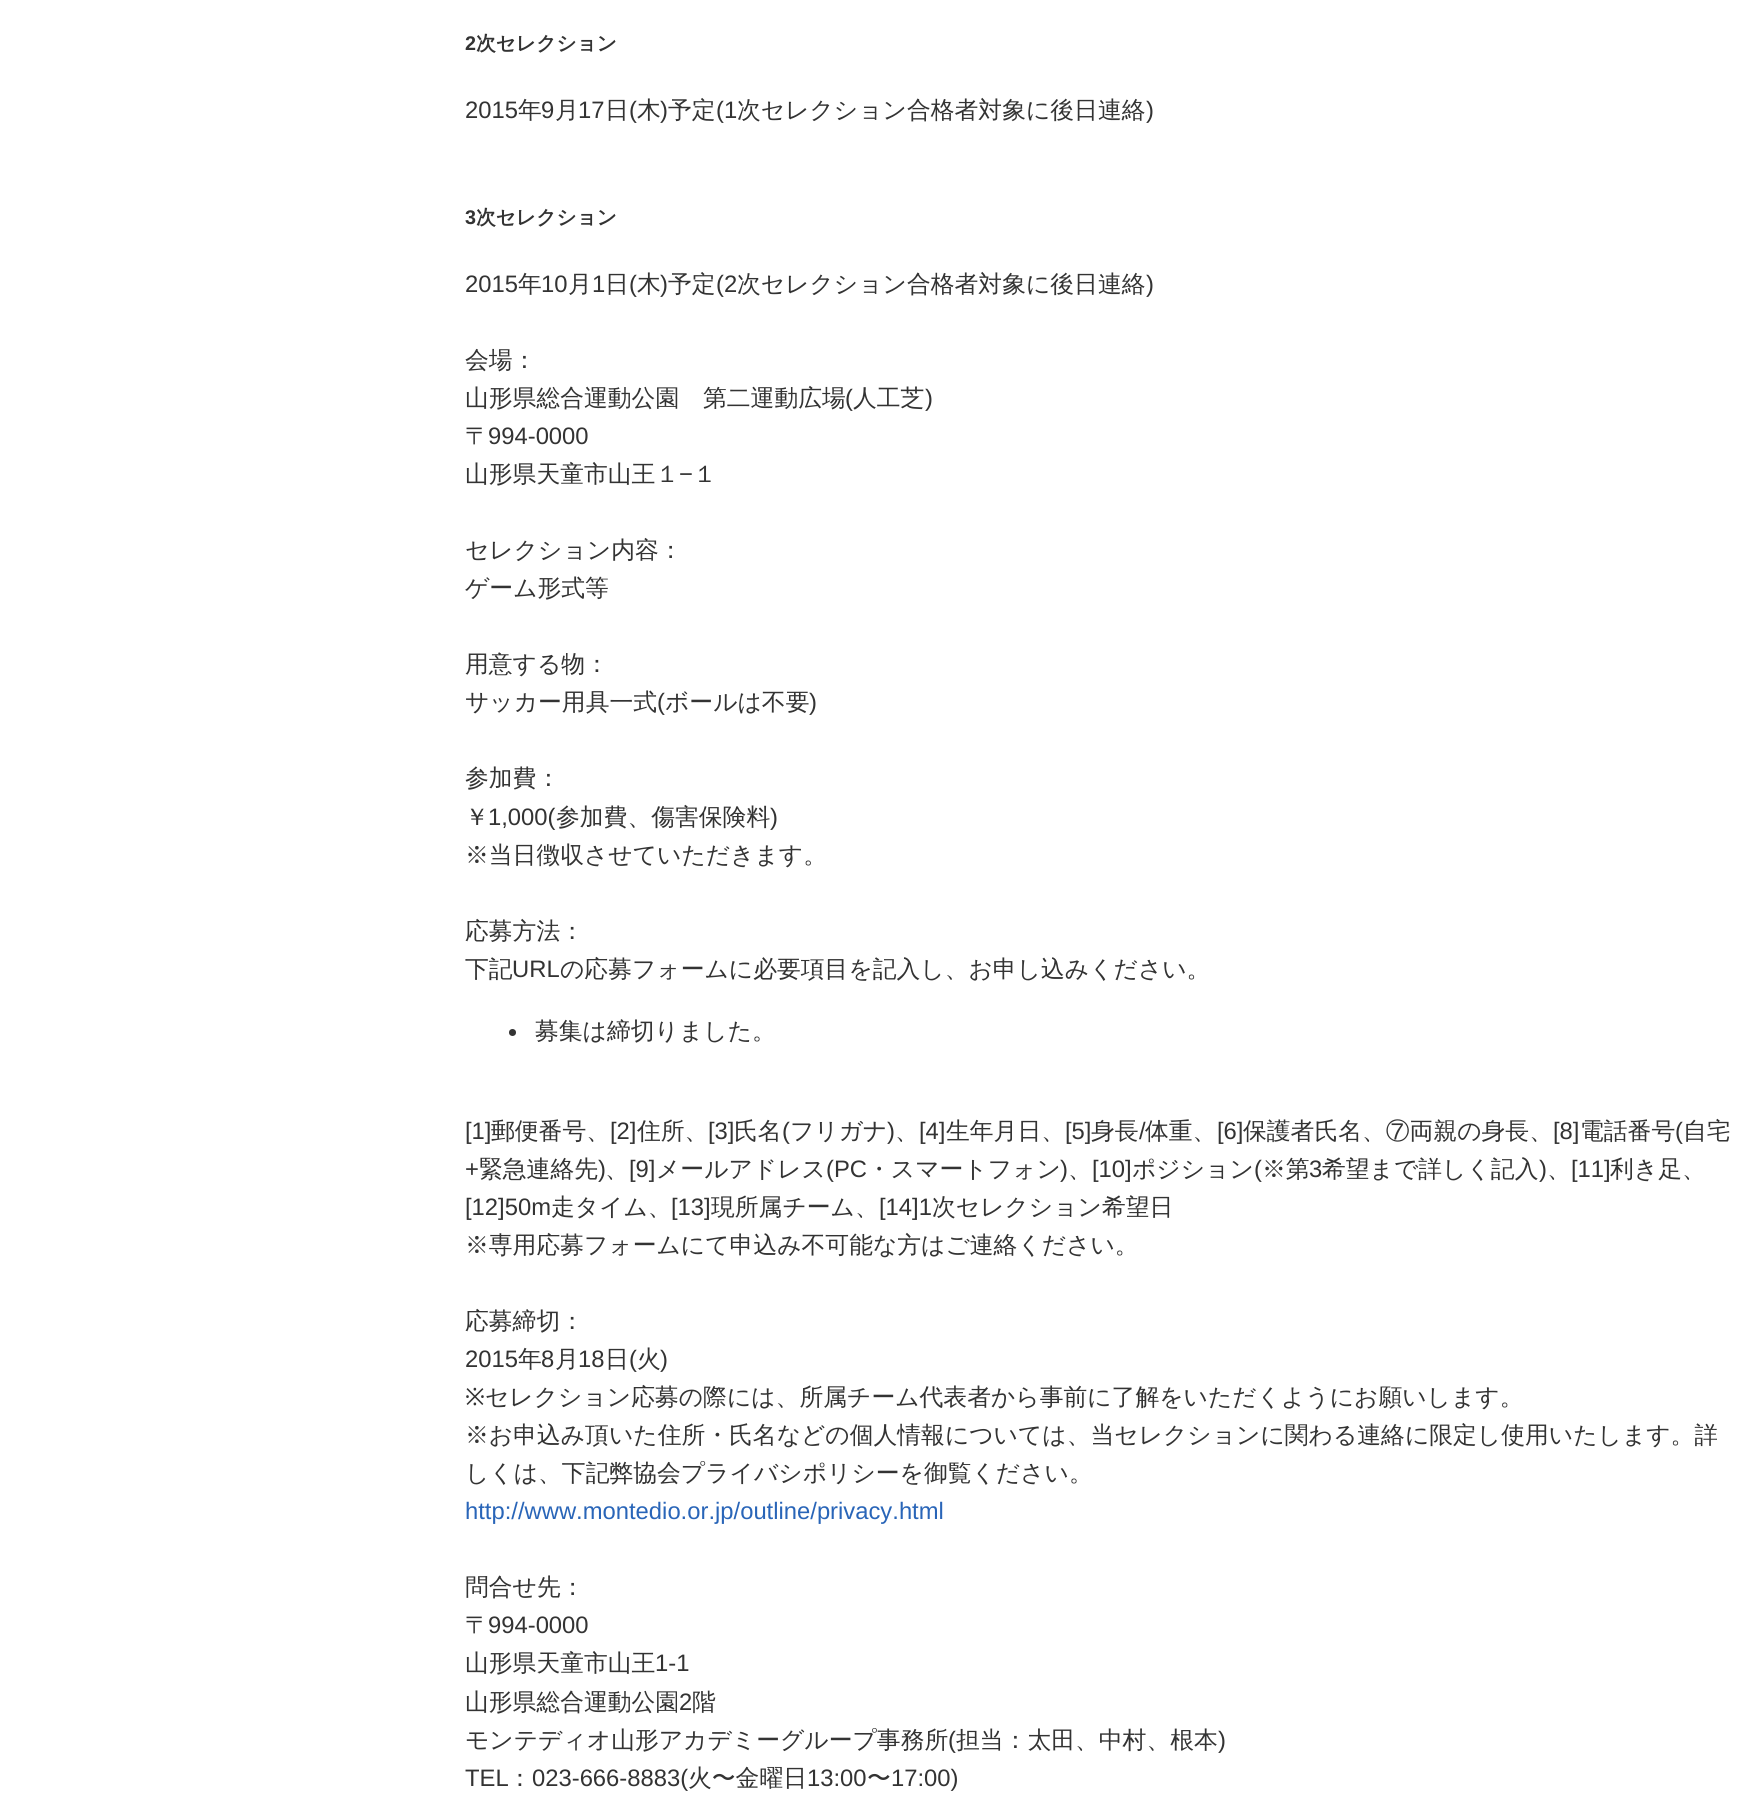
#include <cairo/cairo.h>
#include <math.h>
#include <stddef.h>

typedef struct { double x, y; const char *s; } line_t;
static cairo_t *cr;

static void rgb(unsigned color)
{
	cairo_set_source_rgb(cr, (color >> 16) / 255.0, (color >> 8 & 255) / 255.0, (color & 255) / 255.0);
}

int main(void) {
	cairo_surface_t *surface = cairo_image_surface_create(CAIRO_FORMAT_RGB24, 1751, 1800);
	cr = cairo_create(surface);
	cairo_font_options_t *options = cairo_font_options_create();
	cairo_font_options_set_hint_metrics(options, CAIRO_HINT_METRICS_OFF);
	cairo_font_options_set_hint_style(options, CAIRO_HINT_STYLE_NONE);
	cairo_set_font_options(cr, options);
	cairo_set_miter_limit(cr, 4);
	rgb(0xffffff);
	cairo_paint(cr);
	rgb(0x333333);
	cairo_arc(cr, 512.5, 1032.5, 3.5, 0, 2 * M_PI);
	cairo_fill(cr);
	cairo_select_font_face(cr, "Liberation Sans", CAIRO_FONT_SLANT_NORMAL, CAIRO_FONT_WEIGHT_BOLD);
	cairo_set_font_size(cr, 19.75);
	cairo_move_to(cr, 465, 50);
	cairo_show_text(cr, "2");
	cairo_select_font_face(cr, "WenQuanYi Zen Hei", CAIRO_FONT_SLANT_NORMAL, CAIRO_FONT_WEIGHT_BOLD);
	cairo_move_to(cr, 476, 50);
	cairo_show_text(cr, "次セレクション");
	cairo_select_font_face(cr, "Liberation Sans", CAIRO_FONT_SLANT_NORMAL, CAIRO_FONT_WEIGHT_NORMAL);
	cairo_set_font_size(cr, 23.8);
	cairo_move_to(cr, 465, 118);
	cairo_show_text(cr, "2015");
	cairo_select_font_face(cr, "WenQuanYi Zen Hei Medium", CAIRO_FONT_SLANT_NORMAL, CAIRO_FONT_WEIGHT_NORMAL);
	cairo_move_to(cr, 518, 118);
	cairo_show_text(cr, "年");
	cairo_select_font_face(cr, "Liberation Sans", CAIRO_FONT_SLANT_NORMAL, CAIRO_FONT_WEIGHT_NORMAL);
	cairo_move_to(cr, 541, 118);
	cairo_show_text(cr, "9");
	cairo_select_font_face(cr, "WenQuanYi Zen Hei Medium", CAIRO_FONT_SLANT_NORMAL, CAIRO_FONT_WEIGHT_NORMAL);
	cairo_move_to(cr, 555, 118);
	cairo_show_text(cr, "月");
	cairo_select_font_face(cr, "Liberation Sans", CAIRO_FONT_SLANT_NORMAL, CAIRO_FONT_WEIGHT_NORMAL);
	cairo_move_to(cr, 578, 118);
	cairo_show_text(cr, "17");
	cairo_select_font_face(cr, "WenQuanYi Zen Hei Medium", CAIRO_FONT_SLANT_NORMAL, CAIRO_FONT_WEIGHT_NORMAL);
	cairo_move_to(cr, 605, 118);
	cairo_show_text(cr, "日");
	cairo_select_font_face(cr, "Liberation Sans", CAIRO_FONT_SLANT_NORMAL, CAIRO_FONT_WEIGHT_NORMAL);
	cairo_move_to(cr, 629, 118);
	cairo_show_text(cr, "(");
	cairo_select_font_face(cr, "WenQuanYi Zen Hei Medium", CAIRO_FONT_SLANT_NORMAL, CAIRO_FONT_WEIGHT_NORMAL);
	cairo_move_to(cr, 637, 118);
	cairo_show_text(cr, "木");
	cairo_select_font_face(cr, "Liberation Sans", CAIRO_FONT_SLANT_NORMAL, CAIRO_FONT_WEIGHT_NORMAL);
	cairo_move_to(cr, 660, 118);
	cairo_show_text(cr, ")");
	cairo_select_font_face(cr, "WenQuanYi Zen Hei Medium", CAIRO_FONT_SLANT_NORMAL, CAIRO_FONT_WEIGHT_NORMAL);
	cairo_move_to(cr, 668, 118);
	cairo_show_text(cr, "予定");
	cairo_select_font_face(cr, "Liberation Sans", CAIRO_FONT_SLANT_NORMAL, CAIRO_FONT_WEIGHT_NORMAL);
	cairo_move_to(cr, 716, 118);
	cairo_show_text(cr, "(1");
	cairo_select_font_face(cr, "WenQuanYi Zen Hei Medium", CAIRO_FONT_SLANT_NORMAL, CAIRO_FONT_WEIGHT_NORMAL);
	cairo_move_to(cr, 737, 118);
	cairo_show_text(cr, "次セレクション合格者対象に後日連絡");
	cairo_select_font_face(cr, "Liberation Sans", CAIRO_FONT_SLANT_NORMAL, CAIRO_FONT_WEIGHT_NORMAL);
	cairo_move_to(cr, 1146, 118);
	cairo_show_text(cr, ")");
	cairo_select_font_face(cr, "Liberation Sans", CAIRO_FONT_SLANT_NORMAL, CAIRO_FONT_WEIGHT_BOLD);
	cairo_set_font_size(cr, 19.75);
	cairo_move_to(cr, 465, 224);
	cairo_show_text(cr, "3");
	cairo_select_font_face(cr, "WenQuanYi Zen Hei", CAIRO_FONT_SLANT_NORMAL, CAIRO_FONT_WEIGHT_BOLD);
	cairo_move_to(cr, 476, 224);
	cairo_show_text(cr, "次セレクション");
	cairo_select_font_face(cr, "Liberation Sans", CAIRO_FONT_SLANT_NORMAL, CAIRO_FONT_WEIGHT_NORMAL);
	cairo_set_font_size(cr, 23.8);
	cairo_move_to(cr, 465, 292);
	cairo_show_text(cr, "2015");
	cairo_select_font_face(cr, "WenQuanYi Zen Hei Medium", CAIRO_FONT_SLANT_NORMAL, CAIRO_FONT_WEIGHT_NORMAL);
	cairo_move_to(cr, 518, 292);
	cairo_show_text(cr, "年");
	cairo_select_font_face(cr, "Liberation Sans", CAIRO_FONT_SLANT_NORMAL, CAIRO_FONT_WEIGHT_NORMAL);
	cairo_move_to(cr, 541, 292);
	cairo_show_text(cr, "10");
	cairo_select_font_face(cr, "WenQuanYi Zen Hei Medium", CAIRO_FONT_SLANT_NORMAL, CAIRO_FONT_WEIGHT_NORMAL);
	cairo_move_to(cr, 568, 292);
	cairo_show_text(cr, "月");
	cairo_select_font_face(cr, "Liberation Sans", CAIRO_FONT_SLANT_NORMAL, CAIRO_FONT_WEIGHT_NORMAL);
	cairo_move_to(cr, 592, 292);
	cairo_show_text(cr, "1");
	cairo_select_font_face(cr, "WenQuanYi Zen Hei Medium", CAIRO_FONT_SLANT_NORMAL, CAIRO_FONT_WEIGHT_NORMAL);
	cairo_move_to(cr, 605, 292);
	cairo_show_text(cr, "日");
	cairo_select_font_face(cr, "Liberation Sans", CAIRO_FONT_SLANT_NORMAL, CAIRO_FONT_WEIGHT_NORMAL);
	cairo_move_to(cr, 629, 292);
	cairo_show_text(cr, "(");
	cairo_select_font_face(cr, "WenQuanYi Zen Hei Medium", CAIRO_FONT_SLANT_NORMAL, CAIRO_FONT_WEIGHT_NORMAL);
	cairo_move_to(cr, 637, 292);
	cairo_show_text(cr, "木");
	cairo_select_font_face(cr, "Liberation Sans", CAIRO_FONT_SLANT_NORMAL, CAIRO_FONT_WEIGHT_NORMAL);
	cairo_move_to(cr, 660, 292);
	cairo_show_text(cr, ")");
	cairo_select_font_face(cr, "WenQuanYi Zen Hei Medium", CAIRO_FONT_SLANT_NORMAL, CAIRO_FONT_WEIGHT_NORMAL);
	cairo_move_to(cr, 668, 292);
	cairo_show_text(cr, "予定");
	cairo_select_font_face(cr, "Liberation Sans", CAIRO_FONT_SLANT_NORMAL, CAIRO_FONT_WEIGHT_NORMAL);
	cairo_move_to(cr, 716, 292);
	cairo_show_text(cr, "(2");
	cairo_select_font_face(cr, "WenQuanYi Zen Hei Medium", CAIRO_FONT_SLANT_NORMAL, CAIRO_FONT_WEIGHT_NORMAL);
	cairo_move_to(cr, 737, 292);
	cairo_show_text(cr, "次セレクション合格者対象に後日連絡");
	cairo_select_font_face(cr, "Liberation Sans", CAIRO_FONT_SLANT_NORMAL, CAIRO_FONT_WEIGHT_NORMAL);
	cairo_move_to(cr, 1146, 292);
	cairo_show_text(cr, ")");
	cairo_select_font_face(cr, "WenQuanYi Zen Hei Medium", CAIRO_FONT_SLANT_NORMAL, CAIRO_FONT_WEIGHT_NORMAL);
	cairo_move_to(cr, 465, 368);
	cairo_show_text(cr, "会場：");
	cairo_move_to(cr, 465, 406);
	cairo_show_text(cr, "山形県総合運動公園　第二運動広場");
	cairo_select_font_face(cr, "Liberation Sans", CAIRO_FONT_SLANT_NORMAL, CAIRO_FONT_WEIGHT_NORMAL);
	cairo_move_to(cr, 845, 406);
	cairo_show_text(cr, "(");
	cairo_select_font_face(cr, "WenQuanYi Zen Hei Medium", CAIRO_FONT_SLANT_NORMAL, CAIRO_FONT_WEIGHT_NORMAL);
	cairo_move_to(cr, 853, 406);
	cairo_show_text(cr, "人工芝");
	cairo_select_font_face(cr, "Liberation Sans", CAIRO_FONT_SLANT_NORMAL, CAIRO_FONT_WEIGHT_NORMAL);
	cairo_move_to(cr, 925, 406);
	cairo_show_text(cr, ")");
	cairo_select_font_face(cr, "WenQuanYi Zen Hei Medium", CAIRO_FONT_SLANT_NORMAL, CAIRO_FONT_WEIGHT_NORMAL);
	cairo_move_to(cr, 465, 444);
	cairo_show_text(cr, "〒");
	cairo_select_font_face(cr, "Liberation Sans", CAIRO_FONT_SLANT_NORMAL, CAIRO_FONT_WEIGHT_NORMAL);
	cairo_move_to(cr, 488, 444);
	cairo_show_text(cr, "994-0000");
	cairo_select_font_face(cr, "WenQuanYi Zen Hei Medium", CAIRO_FONT_SLANT_NORMAL, CAIRO_FONT_WEIGHT_NORMAL);
	cairo_move_to(cr, 465, 482);
	cairo_show_text(cr, "山形県天童市山王１");
	cairo_select_font_face(cr, "Liberation Sans", CAIRO_FONT_SLANT_NORMAL, CAIRO_FONT_WEIGHT_NORMAL);
	cairo_move_to(cr, 679, 482);
	cairo_show_text(cr, "−");
	cairo_select_font_face(cr, "WenQuanYi Zen Hei Medium", CAIRO_FONT_SLANT_NORMAL, CAIRO_FONT_WEIGHT_NORMAL);
	{
		static const line_t items[] = {
			{693, 482, "１"},
			{465, 558, "セレクション内容："},
			{465, 596, "ゲーム形式等"},
			{465, 672, "用意する物："},
			{465, 710, "サッカー用具一式"},
		};
		for (size_t i = 0; i < sizeof items / sizeof *items; i++) {
			cairo_move_to(cr, items[i].x, items[i].y);
			cairo_show_text(cr, items[i].s);
		}
	}
	cairo_select_font_face(cr, "Liberation Sans", CAIRO_FONT_SLANT_NORMAL, CAIRO_FONT_WEIGHT_NORMAL);
	cairo_move_to(cr, 657, 710);
	cairo_show_text(cr, "(");
	cairo_select_font_face(cr, "WenQuanYi Zen Hei Medium", CAIRO_FONT_SLANT_NORMAL, CAIRO_FONT_WEIGHT_NORMAL);
	cairo_move_to(cr, 665, 710);
	cairo_show_text(cr, "ボールは不要");
	cairo_select_font_face(cr, "Liberation Sans", CAIRO_FONT_SLANT_NORMAL, CAIRO_FONT_WEIGHT_NORMAL);
	cairo_move_to(cr, 809, 710);
	cairo_show_text(cr, ")");
	cairo_select_font_face(cr, "WenQuanYi Zen Hei Medium", CAIRO_FONT_SLANT_NORMAL, CAIRO_FONT_WEIGHT_NORMAL);
	cairo_move_to(cr, 465, 786);
	cairo_show_text(cr, "参加費：");
	cairo_move_to(cr, 465, 825);
	cairo_show_text(cr, "￥");
	cairo_select_font_face(cr, "Liberation Sans", CAIRO_FONT_SLANT_NORMAL, CAIRO_FONT_WEIGHT_NORMAL);
	cairo_move_to(cr, 488, 825);
	cairo_show_text(cr, "1,000(");
	cairo_select_font_face(cr, "WenQuanYi Zen Hei Medium", CAIRO_FONT_SLANT_NORMAL, CAIRO_FONT_WEIGHT_NORMAL);
	cairo_move_to(cr, 556, 825);
	cairo_show_text(cr, "参加費、傷害保険料");
	cairo_select_font_face(cr, "Liberation Sans", CAIRO_FONT_SLANT_NORMAL, CAIRO_FONT_WEIGHT_NORMAL);
	cairo_move_to(cr, 770, 825);
	cairo_show_text(cr, ")");
	cairo_select_font_face(cr, "WenQuanYi Zen Hei Medium", CAIRO_FONT_SLANT_NORMAL, CAIRO_FONT_WEIGHT_NORMAL);
	{
		static const line_t items[] = {
			{465, 863, "※当日徴収させていただきます。"},
			{465, 939, "応募方法："},
			{465, 977, "下記"},
		};
		for (size_t i = 0; i < sizeof items / sizeof *items; i++) {
			cairo_move_to(cr, items[i].x, items[i].y);
			cairo_show_text(cr, items[i].s);
		}
	}
	cairo_select_font_face(cr, "Liberation Sans", CAIRO_FONT_SLANT_NORMAL, CAIRO_FONT_WEIGHT_NORMAL);
	cairo_move_to(cr, 512, 977);
	cairo_show_text(cr, "URL");
	cairo_select_font_face(cr, "WenQuanYi Zen Hei Medium", CAIRO_FONT_SLANT_NORMAL, CAIRO_FONT_WEIGHT_NORMAL);
	cairo_move_to(cr, 560, 977);
	cairo_show_text(cr, "の応募フォームに必要項目を記入し、お申し込みください。");
	cairo_move_to(cr, 535, 1039);
	cairo_show_text(cr, "募集は締切りました。");
	cairo_select_font_face(cr, "Liberation Sans", CAIRO_FONT_SLANT_NORMAL, CAIRO_FONT_WEIGHT_NORMAL);
	cairo_move_to(cr, 465, 1139);
	cairo_show_text(cr, "[1]");
	cairo_select_font_face(cr, "WenQuanYi Zen Hei Medium", CAIRO_FONT_SLANT_NORMAL, CAIRO_FONT_WEIGHT_NORMAL);
	cairo_move_to(cr, 491, 1139);
	cairo_show_text(cr, "郵便番号、");
	cairo_select_font_face(cr, "Liberation Sans", CAIRO_FONT_SLANT_NORMAL, CAIRO_FONT_WEIGHT_NORMAL);
	cairo_move_to(cr, 610, 1139);
	cairo_show_text(cr, "[2]");
	cairo_select_font_face(cr, "WenQuanYi Zen Hei Medium", CAIRO_FONT_SLANT_NORMAL, CAIRO_FONT_WEIGHT_NORMAL);
	cairo_move_to(cr, 637, 1139);
	cairo_show_text(cr, "住所、");
	cairo_select_font_face(cr, "Liberation Sans", CAIRO_FONT_SLANT_NORMAL, CAIRO_FONT_WEIGHT_NORMAL);
	cairo_move_to(cr, 708, 1139);
	cairo_show_text(cr, "[3]");
	cairo_select_font_face(cr, "WenQuanYi Zen Hei Medium", CAIRO_FONT_SLANT_NORMAL, CAIRO_FONT_WEIGHT_NORMAL);
	cairo_move_to(cr, 734, 1139);
	cairo_show_text(cr, "氏名");
	cairo_select_font_face(cr, "Liberation Sans", CAIRO_FONT_SLANT_NORMAL, CAIRO_FONT_WEIGHT_NORMAL);
	cairo_move_to(cr, 782, 1139);
	cairo_show_text(cr, "(");
	cairo_select_font_face(cr, "WenQuanYi Zen Hei Medium", CAIRO_FONT_SLANT_NORMAL, CAIRO_FONT_WEIGHT_NORMAL);
	cairo_move_to(cr, 790, 1139);
	cairo_show_text(cr, "フリガナ");
	cairo_select_font_face(cr, "Liberation Sans", CAIRO_FONT_SLANT_NORMAL, CAIRO_FONT_WEIGHT_NORMAL);
	cairo_move_to(cr, 887, 1139);
	cairo_show_text(cr, ")");
	cairo_select_font_face(cr, "WenQuanYi Zen Hei Medium", CAIRO_FONT_SLANT_NORMAL, CAIRO_FONT_WEIGHT_NORMAL);
	cairo_move_to(cr, 895, 1139);
	cairo_show_text(cr, "、");
	cairo_select_font_face(cr, "Liberation Sans", CAIRO_FONT_SLANT_NORMAL, CAIRO_FONT_WEIGHT_NORMAL);
	cairo_move_to(cr, 919, 1139);
	cairo_show_text(cr, "[4]");
	cairo_select_font_face(cr, "WenQuanYi Zen Hei Medium", CAIRO_FONT_SLANT_NORMAL, CAIRO_FONT_WEIGHT_NORMAL);
	cairo_move_to(cr, 946, 1139);
	cairo_show_text(cr, "生年月日、");
	cairo_select_font_face(cr, "Liberation Sans", CAIRO_FONT_SLANT_NORMAL, CAIRO_FONT_WEIGHT_NORMAL);
	cairo_move_to(cr, 1065, 1139);
	cairo_show_text(cr, "[5]");
	cairo_select_font_face(cr, "WenQuanYi Zen Hei Medium", CAIRO_FONT_SLANT_NORMAL, CAIRO_FONT_WEIGHT_NORMAL);
	cairo_move_to(cr, 1091, 1139);
	cairo_show_text(cr, "身長");
	cairo_select_font_face(cr, "Liberation Sans", CAIRO_FONT_SLANT_NORMAL, CAIRO_FONT_WEIGHT_NORMAL);
	cairo_move_to(cr, 1139, 1139);
	cairo_show_text(cr, "/");
	cairo_select_font_face(cr, "WenQuanYi Zen Hei Medium", CAIRO_FONT_SLANT_NORMAL, CAIRO_FONT_WEIGHT_NORMAL);
	cairo_move_to(cr, 1145, 1139);
	cairo_show_text(cr, "体重、");
	cairo_select_font_face(cr, "Liberation Sans", CAIRO_FONT_SLANT_NORMAL, CAIRO_FONT_WEIGHT_NORMAL);
	cairo_move_to(cr, 1217, 1139);
	cairo_show_text(cr, "[6]");
	cairo_select_font_face(cr, "WenQuanYi Zen Hei Medium", CAIRO_FONT_SLANT_NORMAL, CAIRO_FONT_WEIGHT_NORMAL);
	cairo_move_to(cr, 1243, 1139);
	cairo_show_text(cr, "保護者氏名、⑦両親の身長、");
	cairo_select_font_face(cr, "Liberation Sans", CAIRO_FONT_SLANT_NORMAL, CAIRO_FONT_WEIGHT_NORMAL);
	cairo_move_to(cr, 1553, 1139);
	cairo_show_text(cr, "[8]");
	cairo_select_font_face(cr, "WenQuanYi Zen Hei Medium", CAIRO_FONT_SLANT_NORMAL, CAIRO_FONT_WEIGHT_NORMAL);
	cairo_move_to(cr, 1580, 1139);
	cairo_show_text(cr, "電話番号");
	cairo_select_font_face(cr, "Liberation Sans", CAIRO_FONT_SLANT_NORMAL, CAIRO_FONT_WEIGHT_NORMAL);
	cairo_move_to(cr, 1675, 1139);
	cairo_show_text(cr, "(");
	cairo_select_font_face(cr, "WenQuanYi Zen Hei Medium", CAIRO_FONT_SLANT_NORMAL, CAIRO_FONT_WEIGHT_NORMAL);
	cairo_move_to(cr, 1683, 1139);
	cairo_show_text(cr, "自宅");
	cairo_select_font_face(cr, "Liberation Sans", CAIRO_FONT_SLANT_NORMAL, CAIRO_FONT_WEIGHT_NORMAL);
	cairo_move_to(cr, 465, 1177);
	cairo_show_text(cr, "+");
	cairo_select_font_face(cr, "WenQuanYi Zen Hei Medium", CAIRO_FONT_SLANT_NORMAL, CAIRO_FONT_WEIGHT_NORMAL);
	cairo_move_to(cr, 479, 1177);
	cairo_show_text(cr, "緊急連絡先");
	cairo_select_font_face(cr, "Liberation Sans", CAIRO_FONT_SLANT_NORMAL, CAIRO_FONT_WEIGHT_NORMAL);
	cairo_move_to(cr, 598, 1177);
	cairo_show_text(cr, ")");
	cairo_move_to(cr, 629, 1177);
	cairo_show_text(cr, "[9]");
	cairo_select_font_face(cr, "WenQuanYi Zen Hei Medium", CAIRO_FONT_SLANT_NORMAL, CAIRO_FONT_WEIGHT_NORMAL);
	cairo_move_to(cr, 656, 1177);
	cairo_show_text(cr, "メールアドレス");
	cairo_select_font_face(cr, "Liberation Sans", CAIRO_FONT_SLANT_NORMAL, CAIRO_FONT_WEIGHT_NORMAL);
	cairo_move_to(cr, 826, 1177);
	cairo_show_text(cr, "(PC");
	cairo_select_font_face(cr, "WenQuanYi Zen Hei Medium", CAIRO_FONT_SLANT_NORMAL, CAIRO_FONT_WEIGHT_NORMAL);
	cairo_move_to(cr, 867, 1177);
	cairo_show_text(cr, "・スマートフォン");
	cairo_select_font_face(cr, "Liberation Sans", CAIRO_FONT_SLANT_NORMAL, CAIRO_FONT_WEIGHT_NORMAL);
	cairo_move_to(cr, 1060, 1177);
	cairo_show_text(cr, ")");
	cairo_move_to(cr, 1092, 1177);
	cairo_show_text(cr, "[10]");
	cairo_select_font_face(cr, "WenQuanYi Zen Hei Medium", CAIRO_FONT_SLANT_NORMAL, CAIRO_FONT_WEIGHT_NORMAL);
	cairo_move_to(cr, 1132, 1177);
	cairo_show_text(cr, "ポジション");
	cairo_select_font_face(cr, "Liberation Sans", CAIRO_FONT_SLANT_NORMAL, CAIRO_FONT_WEIGHT_NORMAL);
	cairo_move_to(cr, 1254, 1177);
	cairo_show_text(cr, "(");
	cairo_select_font_face(cr, "WenQuanYi Zen Hei Medium", CAIRO_FONT_SLANT_NORMAL, CAIRO_FONT_WEIGHT_NORMAL);
	cairo_move_to(cr, 1262, 1177);
	cairo_show_text(cr, "※第");
	cairo_select_font_face(cr, "Liberation Sans", CAIRO_FONT_SLANT_NORMAL, CAIRO_FONT_WEIGHT_NORMAL);
	cairo_move_to(cr, 1309, 1177);
	cairo_show_text(cr, "3");
	cairo_select_font_face(cr, "WenQuanYi Zen Hei Medium", CAIRO_FONT_SLANT_NORMAL, CAIRO_FONT_WEIGHT_NORMAL);
	cairo_move_to(cr, 1322, 1177);
	cairo_show_text(cr, "希望まで詳しく記入");
	cairo_select_font_face(cr, "Liberation Sans", CAIRO_FONT_SLANT_NORMAL, CAIRO_FONT_WEIGHT_NORMAL);
	cairo_move_to(cr, 1539, 1177);
	cairo_show_text(cr, ")");
	cairo_move_to(cr, 1571, 1177);
	cairo_show_text(cr, "[11]");
	cairo_select_font_face(cr, "WenQuanYi Zen Hei Medium", CAIRO_FONT_SLANT_NORMAL, CAIRO_FONT_WEIGHT_NORMAL);
	{
		static const line_t items[] = {
			{1610, 1177, "利き足、"},
			{605, 1177, "、"},
			{1068, 1177, "、"},
			{1547, 1177, "、"},
		};
		for (size_t i = 0; i < sizeof items / sizeof *items; i++) {
			cairo_move_to(cr, items[i].x, items[i].y);
			cairo_show_text(cr, items[i].s);
		}
	}
	cairo_select_font_face(cr, "Liberation Sans", CAIRO_FONT_SLANT_NORMAL, CAIRO_FONT_WEIGHT_NORMAL);
	cairo_move_to(cr, 465, 1215);
	cairo_show_text(cr, "[12]50m");
	cairo_select_font_face(cr, "WenQuanYi Zen Hei Medium", CAIRO_FONT_SLANT_NORMAL, CAIRO_FONT_WEIGHT_NORMAL);
	cairo_move_to(cr, 551, 1215);
	cairo_show_text(cr, "走タイム、");
	cairo_select_font_face(cr, "Liberation Sans", CAIRO_FONT_SLANT_NORMAL, CAIRO_FONT_WEIGHT_NORMAL);
	cairo_move_to(cr, 671, 1215);
	cairo_show_text(cr, "[13]");
	cairo_select_font_face(cr, "WenQuanYi Zen Hei Medium", CAIRO_FONT_SLANT_NORMAL, CAIRO_FONT_WEIGHT_NORMAL);
	cairo_move_to(cr, 711, 1215);
	cairo_show_text(cr, "現所属チーム、");
	cairo_select_font_face(cr, "Liberation Sans", CAIRO_FONT_SLANT_NORMAL, CAIRO_FONT_WEIGHT_NORMAL);
	cairo_move_to(cr, 879, 1215);
	cairo_show_text(cr, "[14]1");
	cairo_select_font_face(cr, "WenQuanYi Zen Hei Medium", CAIRO_FONT_SLANT_NORMAL, CAIRO_FONT_WEIGHT_NORMAL);
	{
		static const line_t items[] = {
			{932, 1215, "次セレクション希望日"},
			{465, 1253, "※専用応募フォームにて申込み不可能な方はご連絡ください。"},
			{465, 1329, "応募締切："},
		};
		for (size_t i = 0; i < sizeof items / sizeof *items; i++) {
			cairo_move_to(cr, items[i].x, items[i].y);
			cairo_show_text(cr, items[i].s);
		}
	}
	cairo_select_font_face(cr, "Liberation Sans", CAIRO_FONT_SLANT_NORMAL, CAIRO_FONT_WEIGHT_NORMAL);
	cairo_move_to(cr, 465, 1367);
	cairo_show_text(cr, "2015");
	cairo_select_font_face(cr, "WenQuanYi Zen Hei Medium", CAIRO_FONT_SLANT_NORMAL, CAIRO_FONT_WEIGHT_NORMAL);
	cairo_move_to(cr, 518, 1367);
	cairo_show_text(cr, "年");
	cairo_select_font_face(cr, "Liberation Sans", CAIRO_FONT_SLANT_NORMAL, CAIRO_FONT_WEIGHT_NORMAL);
	cairo_move_to(cr, 541, 1367);
	cairo_show_text(cr, "8");
	cairo_select_font_face(cr, "WenQuanYi Zen Hei Medium", CAIRO_FONT_SLANT_NORMAL, CAIRO_FONT_WEIGHT_NORMAL);
	cairo_move_to(cr, 555, 1367);
	cairo_show_text(cr, "月");
	cairo_select_font_face(cr, "Liberation Sans", CAIRO_FONT_SLANT_NORMAL, CAIRO_FONT_WEIGHT_NORMAL);
	cairo_move_to(cr, 578, 1367);
	cairo_show_text(cr, "18");
	cairo_select_font_face(cr, "WenQuanYi Zen Hei Medium", CAIRO_FONT_SLANT_NORMAL, CAIRO_FONT_WEIGHT_NORMAL);
	cairo_move_to(cr, 605, 1367);
	cairo_show_text(cr, "日");
	cairo_select_font_face(cr, "Liberation Sans", CAIRO_FONT_SLANT_NORMAL, CAIRO_FONT_WEIGHT_NORMAL);
	cairo_move_to(cr, 629, 1367);
	cairo_show_text(cr, "(");
	cairo_select_font_face(cr, "WenQuanYi Zen Hei Medium", CAIRO_FONT_SLANT_NORMAL, CAIRO_FONT_WEIGHT_NORMAL);
	cairo_move_to(cr, 637, 1367);
	cairo_show_text(cr, "火");
	cairo_select_font_face(cr, "Liberation Sans", CAIRO_FONT_SLANT_NORMAL, CAIRO_FONT_WEIGHT_NORMAL);
	cairo_move_to(cr, 660, 1367);
	cairo_show_text(cr, ")");
	cairo_select_font_face(cr, "Noto Sans", CAIRO_FONT_SLANT_NORMAL, CAIRO_FONT_WEIGHT_NORMAL);
	cairo_move_to(cr, 465, 1405);
	cairo_show_text(cr, "※");
	cairo_select_font_face(cr, "WenQuanYi Zen Hei Medium", CAIRO_FONT_SLANT_NORMAL, CAIRO_FONT_WEIGHT_NORMAL);
	{
		static const line_t items[] = {
			{485, 1405, "セレクション応募の際には、所属チーム代表者から事前に了解をいただくようにお願いします。"},
			{465, 1443, "※お申込み頂いた住所・氏名などの個人情報については、当セレクションに関わる連絡に限定し使用いたします。詳"},
			{465, 1481, "しくは、下記弊協会プライバシポリシーを御覧ください。"},
		};
		for (size_t i = 0; i < sizeof items / sizeof *items; i++) {
			cairo_move_to(cr, items[i].x, items[i].y);
			cairo_show_text(cr, items[i].s);
		}
	}
	cairo_select_font_face(cr, "Liberation Sans", CAIRO_FONT_SLANT_NORMAL, CAIRO_FONT_WEIGHT_NORMAL);
	rgb(0x2965b8);
	cairo_move_to(cr, 465, 1519);
	cairo_show_text(cr, "http://www.montedio.or.jp/outline/privacy.html");
	cairo_select_font_face(cr, "WenQuanYi Zen Hei Medium", CAIRO_FONT_SLANT_NORMAL, CAIRO_FONT_WEIGHT_NORMAL);
	rgb(0x333333);
	cairo_move_to(cr, 465, 1595);
	cairo_show_text(cr, "問合せ先：");
	cairo_move_to(cr, 465, 1633);
	cairo_show_text(cr, "〒");
	cairo_select_font_face(cr, "Liberation Sans", CAIRO_FONT_SLANT_NORMAL, CAIRO_FONT_WEIGHT_NORMAL);
	cairo_move_to(cr, 488, 1633);
	cairo_show_text(cr, "994-0000");
	cairo_select_font_face(cr, "WenQuanYi Zen Hei Medium", CAIRO_FONT_SLANT_NORMAL, CAIRO_FONT_WEIGHT_NORMAL);
	cairo_move_to(cr, 465, 1671);
	cairo_show_text(cr, "山形県天童市山王");
	cairo_select_font_face(cr, "Liberation Sans", CAIRO_FONT_SLANT_NORMAL, CAIRO_FONT_WEIGHT_NORMAL);
	cairo_move_to(cr, 655, 1671);
	cairo_show_text(cr, "1-1");
	cairo_select_font_face(cr, "WenQuanYi Zen Hei Medium", CAIRO_FONT_SLANT_NORMAL, CAIRO_FONT_WEIGHT_NORMAL);
	cairo_move_to(cr, 465, 1710);
	cairo_show_text(cr, "山形県総合運動公園");
	cairo_select_font_face(cr, "Liberation Sans", CAIRO_FONT_SLANT_NORMAL, CAIRO_FONT_WEIGHT_NORMAL);
	cairo_move_to(cr, 679, 1710);
	cairo_show_text(cr, "2");
	cairo_select_font_face(cr, "WenQuanYi Zen Hei Medium", CAIRO_FONT_SLANT_NORMAL, CAIRO_FONT_WEIGHT_NORMAL);
	cairo_move_to(cr, 692, 1710);
	cairo_show_text(cr, "階");
	cairo_move_to(cr, 465, 1748);
	cairo_show_text(cr, "モンテディオ山形アカデミーグループ事務所");
	cairo_select_font_face(cr, "Liberation Sans", CAIRO_FONT_SLANT_NORMAL, CAIRO_FONT_WEIGHT_NORMAL);
	cairo_move_to(cr, 948, 1748);
	cairo_show_text(cr, "(");
	cairo_select_font_face(cr, "WenQuanYi Zen Hei Medium", CAIRO_FONT_SLANT_NORMAL, CAIRO_FONT_WEIGHT_NORMAL);
	cairo_move_to(cr, 956, 1748);
	cairo_show_text(cr, "担当：太田、中村、根本");
	cairo_select_font_face(cr, "Liberation Sans", CAIRO_FONT_SLANT_NORMAL, CAIRO_FONT_WEIGHT_NORMAL);
	cairo_move_to(cr, 1218, 1748);
	cairo_show_text(cr, ")");
	cairo_move_to(cr, 465, 1786);
	cairo_show_text(cr, "TEL");
	cairo_select_font_face(cr, "WenQuanYi Zen Hei Medium", CAIRO_FONT_SLANT_NORMAL, CAIRO_FONT_WEIGHT_NORMAL);
	cairo_move_to(cr, 508, 1786);
	cairo_show_text(cr, "：");
	cairo_select_font_face(cr, "Liberation Sans", CAIRO_FONT_SLANT_NORMAL, CAIRO_FONT_WEIGHT_NORMAL);
	cairo_move_to(cr, 532, 1786);
	cairo_show_text(cr, "023-666-8883(");
	cairo_select_font_face(cr, "WenQuanYi Zen Hei Medium", CAIRO_FONT_SLANT_NORMAL, CAIRO_FONT_WEIGHT_NORMAL);
	cairo_move_to(cr, 688, 1786);
	cairo_show_text(cr, "火〜金曜日");
	cairo_select_font_face(cr, "Liberation Sans", CAIRO_FONT_SLANT_NORMAL, CAIRO_FONT_WEIGHT_NORMAL);
	cairo_move_to(cr, 807, 1786);
	cairo_show_text(cr, "13:00");
	cairo_select_font_face(cr, "WenQuanYi Zen Hei Medium", CAIRO_FONT_SLANT_NORMAL, CAIRO_FONT_WEIGHT_NORMAL);
	cairo_move_to(cr, 867, 1786);
	cairo_show_text(cr, "〜");
	cairo_select_font_face(cr, "Liberation Sans", CAIRO_FONT_SLANT_NORMAL, CAIRO_FONT_WEIGHT_NORMAL);
	cairo_move_to(cr, 891, 1786);
	cairo_show_text(cr, "17:00)");
	cairo_surface_write_to_png(surface, "page.png");
	cairo_font_options_destroy(options);
	cairo_destroy(cr);
	cairo_surface_destroy(surface);
	return 0;
}
